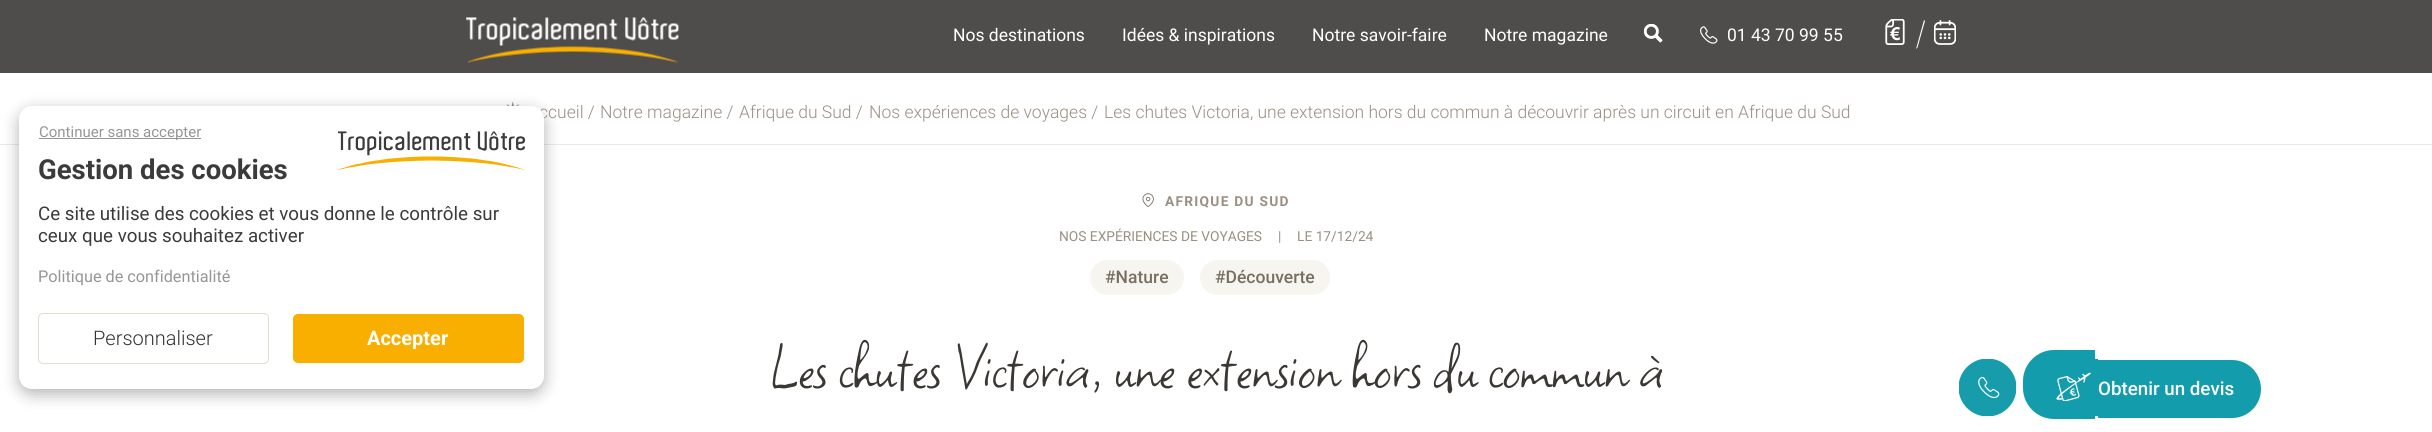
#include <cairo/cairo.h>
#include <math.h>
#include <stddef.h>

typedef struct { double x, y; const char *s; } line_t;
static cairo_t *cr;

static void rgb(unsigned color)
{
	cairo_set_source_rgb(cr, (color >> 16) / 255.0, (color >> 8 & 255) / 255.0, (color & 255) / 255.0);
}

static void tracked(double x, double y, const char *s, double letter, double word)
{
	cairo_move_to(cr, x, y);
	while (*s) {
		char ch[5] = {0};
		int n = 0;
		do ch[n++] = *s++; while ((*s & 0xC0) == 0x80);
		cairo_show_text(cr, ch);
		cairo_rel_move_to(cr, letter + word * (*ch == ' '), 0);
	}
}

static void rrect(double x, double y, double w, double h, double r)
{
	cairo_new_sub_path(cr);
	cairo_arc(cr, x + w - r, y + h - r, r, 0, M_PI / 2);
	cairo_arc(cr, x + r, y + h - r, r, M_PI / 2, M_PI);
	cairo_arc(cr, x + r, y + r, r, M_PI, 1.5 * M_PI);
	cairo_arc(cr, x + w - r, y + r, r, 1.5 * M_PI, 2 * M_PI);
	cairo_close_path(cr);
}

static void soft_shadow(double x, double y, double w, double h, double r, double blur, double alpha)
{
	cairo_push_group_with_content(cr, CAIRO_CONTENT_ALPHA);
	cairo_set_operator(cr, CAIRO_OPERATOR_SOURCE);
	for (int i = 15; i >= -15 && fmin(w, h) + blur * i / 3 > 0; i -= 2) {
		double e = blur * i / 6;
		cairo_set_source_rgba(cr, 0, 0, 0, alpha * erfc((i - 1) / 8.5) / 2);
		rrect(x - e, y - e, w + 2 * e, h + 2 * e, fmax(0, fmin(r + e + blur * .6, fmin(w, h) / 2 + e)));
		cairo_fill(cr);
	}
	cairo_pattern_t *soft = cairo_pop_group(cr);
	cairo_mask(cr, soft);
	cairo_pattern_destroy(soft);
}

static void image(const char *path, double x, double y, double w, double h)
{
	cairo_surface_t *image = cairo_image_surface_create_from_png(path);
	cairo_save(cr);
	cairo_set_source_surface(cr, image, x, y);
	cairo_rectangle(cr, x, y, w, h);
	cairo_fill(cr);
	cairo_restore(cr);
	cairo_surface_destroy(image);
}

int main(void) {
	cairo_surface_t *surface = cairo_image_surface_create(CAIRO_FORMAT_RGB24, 2432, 432);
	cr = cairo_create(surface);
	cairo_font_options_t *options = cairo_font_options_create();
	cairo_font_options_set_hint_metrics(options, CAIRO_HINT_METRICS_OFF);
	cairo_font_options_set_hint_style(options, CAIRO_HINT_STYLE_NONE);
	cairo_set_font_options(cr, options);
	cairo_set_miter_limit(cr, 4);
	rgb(0xffffff);
	cairo_paint(cr);
	rgb(0x4e4d4c);
	cairo_rectangle(cr, 0, 0, 2432, 73);
	cairo_fill(cr);
	image("img/1.png", 466, 17, 213, 46);
	image("img/2.png", 1644, 24, 19, 19);
	image("img/3.png", 1700, 26, 18, 18);
	image("img/4.png", 1885, 19, 20, 26);
	rgb(0xffffff);
	cairo_new_path(cr);
	cairo_move_to(cr, 1916, 49);
	cairo_line_to(cr, 1924, 20);
	cairo_line_to(cr, 1925, 21);
	cairo_line_to(cr, 1917.5, 47.5);
	cairo_close_path(cr);
	cairo_fill(cr);
	image("img/5.png", 1934, 20, 22, 25);
	image("img/7.png", 506, 101, 14, 5);
	rgb(0xede9e2);
	cairo_rectangle(cr, 0, 144, 2432, 1);
	cairo_fill(cr);
	rgb(0x000000);
	soft_shadow(19, 111, 525, 283, 13, 8, 0.3);
	image("img/8.png", 1142, 193, 12, 15);
	rgb(0xf7f5f0);
	rrect(1090, 260, 94, 35, 17.5);
	cairo_fill(cr);
	rrect(1200, 260, 130, 35, 17.5);
	cairo_fill(cr);
	image("img/9.png", 1959, 359, 57, 57);
	rgb(0x139cab);
	cairo_new_path(cr);
	cairo_move_to(cr, 2054, 350);
	cairo_line_to(cr, 2095, 350);
	cairo_line_to(cr, 2095, 419);
	cairo_line_to(cr, 2054, 419);
	cairo_curve_to(cr, 2037, 419, 2023, 405, 2023, 388);
	cairo_line_to(cr, 2023, 381);
	cairo_curve_to(cr, 2023, 364, 2037, 350, 2054, 350);
	cairo_close_path(cr);
	cairo_fill(cr);
	image("img/10.png", 2056, 372, 35, 29);
	cairo_rectangle(cr, 2095, 359, 3, 57);
	cairo_fill(cr);
	cairo_new_path(cr);
	cairo_move_to(cr, 2098, 360);
	cairo_line_to(cr, 2232, 360);
	cairo_curve_to(cr, 2248, 360, 2261, 373, 2261, 389);
	cairo_curve_to(cr, 2261, 405, 2248, 418, 2232, 418);
	cairo_line_to(cr, 2098, 418);
	cairo_close_path(cr);
	cairo_fill(cr);
	cairo_select_font_face(cr, "Roboto", CAIRO_FONT_SLANT_NORMAL, CAIRO_FONT_WEIGHT_NORMAL);
	cairo_set_font_size(cr, 17.5);
	rgb(0xffffff);
	{
		static const line_t items[] = {
			{953, 41, "Nos destinations"},
			{1122, 41, "Idées & inspirations"},
			{1312, 41, "Notre savoir-faire"},
			{1484, 41, "Notre magazine"},
			{1727, 41, "01 43 70 99 55"},
		};
		for (size_t i = 0; i < sizeof items / sizeof *items; i++) {
			cairo_move_to(cr, items[i].x, items[i].y);
			cairo_show_text(cr, items[i].s);
		}
	}
	cairo_select_font_face(cr, "Roboto Light", CAIRO_FONT_SLANT_NORMAL, CAIRO_FONT_WEIGHT_NORMAL);
	rgb(0x9a8f81);
	cairo_move_to(cr, 539, 118);
	cairo_show_text(cr, "ccueil /");
	rgb(0xffffff);
	rrect(19, 106, 525, 283, 13);
	cairo_fill(cr);
	rgb(0x969696);
	cairo_rectangle(cr, 39, 138, 162, 1);
	cairo_fill(cr);
	cairo_select_font_face(cr, "Roboto", CAIRO_FONT_SLANT_NORMAL, CAIRO_FONT_WEIGHT_NORMAL);
	cairo_set_font_size(cr, 15);
	cairo_move_to(cr, 39, 137);
	cairo_show_text(cr, "Continuer sans accepter");
	cairo_set_font_size(cr, 18.75);
	rgb(0x3b3b3b);
	cairo_move_to(cr, 38, 242);
	cairo_show_text(cr, "ceux que vous souhaitez activer");
	cairo_move_to(cr, 38, 220);
	cairo_show_text(cr, "Ce site utilise des cookies et vous donne le contrôle sur");
	rgb(0xf8af00);
	rrect(293, 314, 231, 49, 5);
	cairo_fill(cr);
	cairo_select_font_face(cr, "Roboto", CAIRO_FONT_SLANT_NORMAL, CAIRO_FONT_WEIGHT_BOLD);
	cairo_set_font_size(cr, 20);
	rgb(0xffffff);
	cairo_move_to(cr, 367, 345);
	cairo_show_text(cr, "Accepter");
	rrect(38.5, 313.5, 230, 50, 4.5);
	rgb(0xe3dcd1);
	cairo_set_line_width(cr, 1);
	cairo_stroke(cr);
	cairo_select_font_face(cr, "Roboto Light", CAIRO_FONT_SLANT_NORMAL, CAIRO_FONT_WEIGHT_NORMAL);
	rgb(0x333333);
	cairo_move_to(cr, 93, 345);
	cairo_show_text(cr, "Personnaliser");
	cairo_select_font_face(cr, "Roboto", CAIRO_FONT_SLANT_NORMAL, CAIRO_FONT_WEIGHT_NORMAL);
	cairo_set_font_size(cr, 16.25);
	rgb(0x969696);
	cairo_move_to(cr, 38, 282);
	cairo_show_text(cr, "Politique de confidentialité");
	cairo_select_font_face(cr, "Roboto", CAIRO_FONT_SLANT_NORMAL, CAIRO_FONT_WEIGHT_BOLD);
	cairo_set_font_size(cr, 27.5);
	rgb(0x3b3b3b);
	cairo_move_to(cr, 38, 179);
	cairo_show_text(cr, "Gestion des cookies");
	image("img/6.png", 338, 131, 187, 39);
	cairo_select_font_face(cr, "Roboto Light", CAIRO_FONT_SLANT_NORMAL, CAIRO_FONT_WEIGHT_NORMAL);
	cairo_set_font_size(cr, 17.5);
	rgb(0x9a8f81);
	{
		static const line_t items[] = {
			{600, 118, "Notre magazine /"},
			{739, 118, "Afrique du Sud /"},
			{869, 118, "Nos expériences de voyages /"},
			{1104, 118, "Les chutes Victoria, une extension hors du commun à découvrir après un circuit en Afrique du Sud"},
		};
		for (size_t i = 0; i < sizeof items / sizeof *items; i++) {
			cairo_move_to(cr, items[i].x, items[i].y);
			cairo_show_text(cr, items[i].s);
		}
	}
	cairo_select_font_face(cr, "Roboto", CAIRO_FONT_SLANT_NORMAL, CAIRO_FONT_WEIGHT_BOLD);
	cairo_set_font_size(cr, 13.75);
	tracked(1165, 206, "AFRIQUE DU SUD", 1.25, 0);
	cairo_select_font_face(cr, "Roboto", CAIRO_FONT_SLANT_NORMAL, CAIRO_FONT_WEIGHT_NORMAL);
	{
		static const line_t items[] = {
			{1059, 241, "NOS EXPÉRIENCES DE VOYAGES"},
			{1278, 241, "|"},
			{1297, 241, "LE 17/12/24"},
		};
		for (size_t i = 0; i < sizeof items / sizeof *items; i++) {
			cairo_move_to(cr, items[i].x, items[i].y);
			cairo_show_text(cr, items[i].s);
		}
	}
	cairo_select_font_face(cr, "Roboto Medium", CAIRO_FONT_SLANT_NORMAL, CAIRO_FONT_WEIGHT_NORMAL);
	cairo_set_font_size(cr, 17.5);
	rgb(0x786e61);
	cairo_move_to(cr, 1105, 283);
	cairo_show_text(cr, "#Nature");
	cairo_move_to(cr, 1215, 283);
	cairo_show_text(cr, "#Découverte");
	cairo_select_font_face(cr, "Square Peg", CAIRO_FONT_SLANT_NORMAL, CAIRO_FONT_WEIGHT_NORMAL);
	cairo_set_font_size(cr, 70);
	rgb(0x3b3833);
	tracked(768, 387, "Les chutes Victoria, une extension hors du commun à", -0.25, 0);
	cairo_select_font_face(cr, "Roboto Medium", CAIRO_FONT_SLANT_NORMAL, CAIRO_FONT_WEIGHT_NORMAL);
	cairo_set_font_size(cr, 18.75);
	rgb(0xffffff);
	cairo_move_to(cr, 2098, 395);
	cairo_show_text(cr, "Obtenir un devis");
	cairo_surface_write_to_png(surface, "page.png");
	cairo_font_options_destroy(options);
	cairo_destroy(cr);
	cairo_surface_destroy(surface);
	return 0;
}
